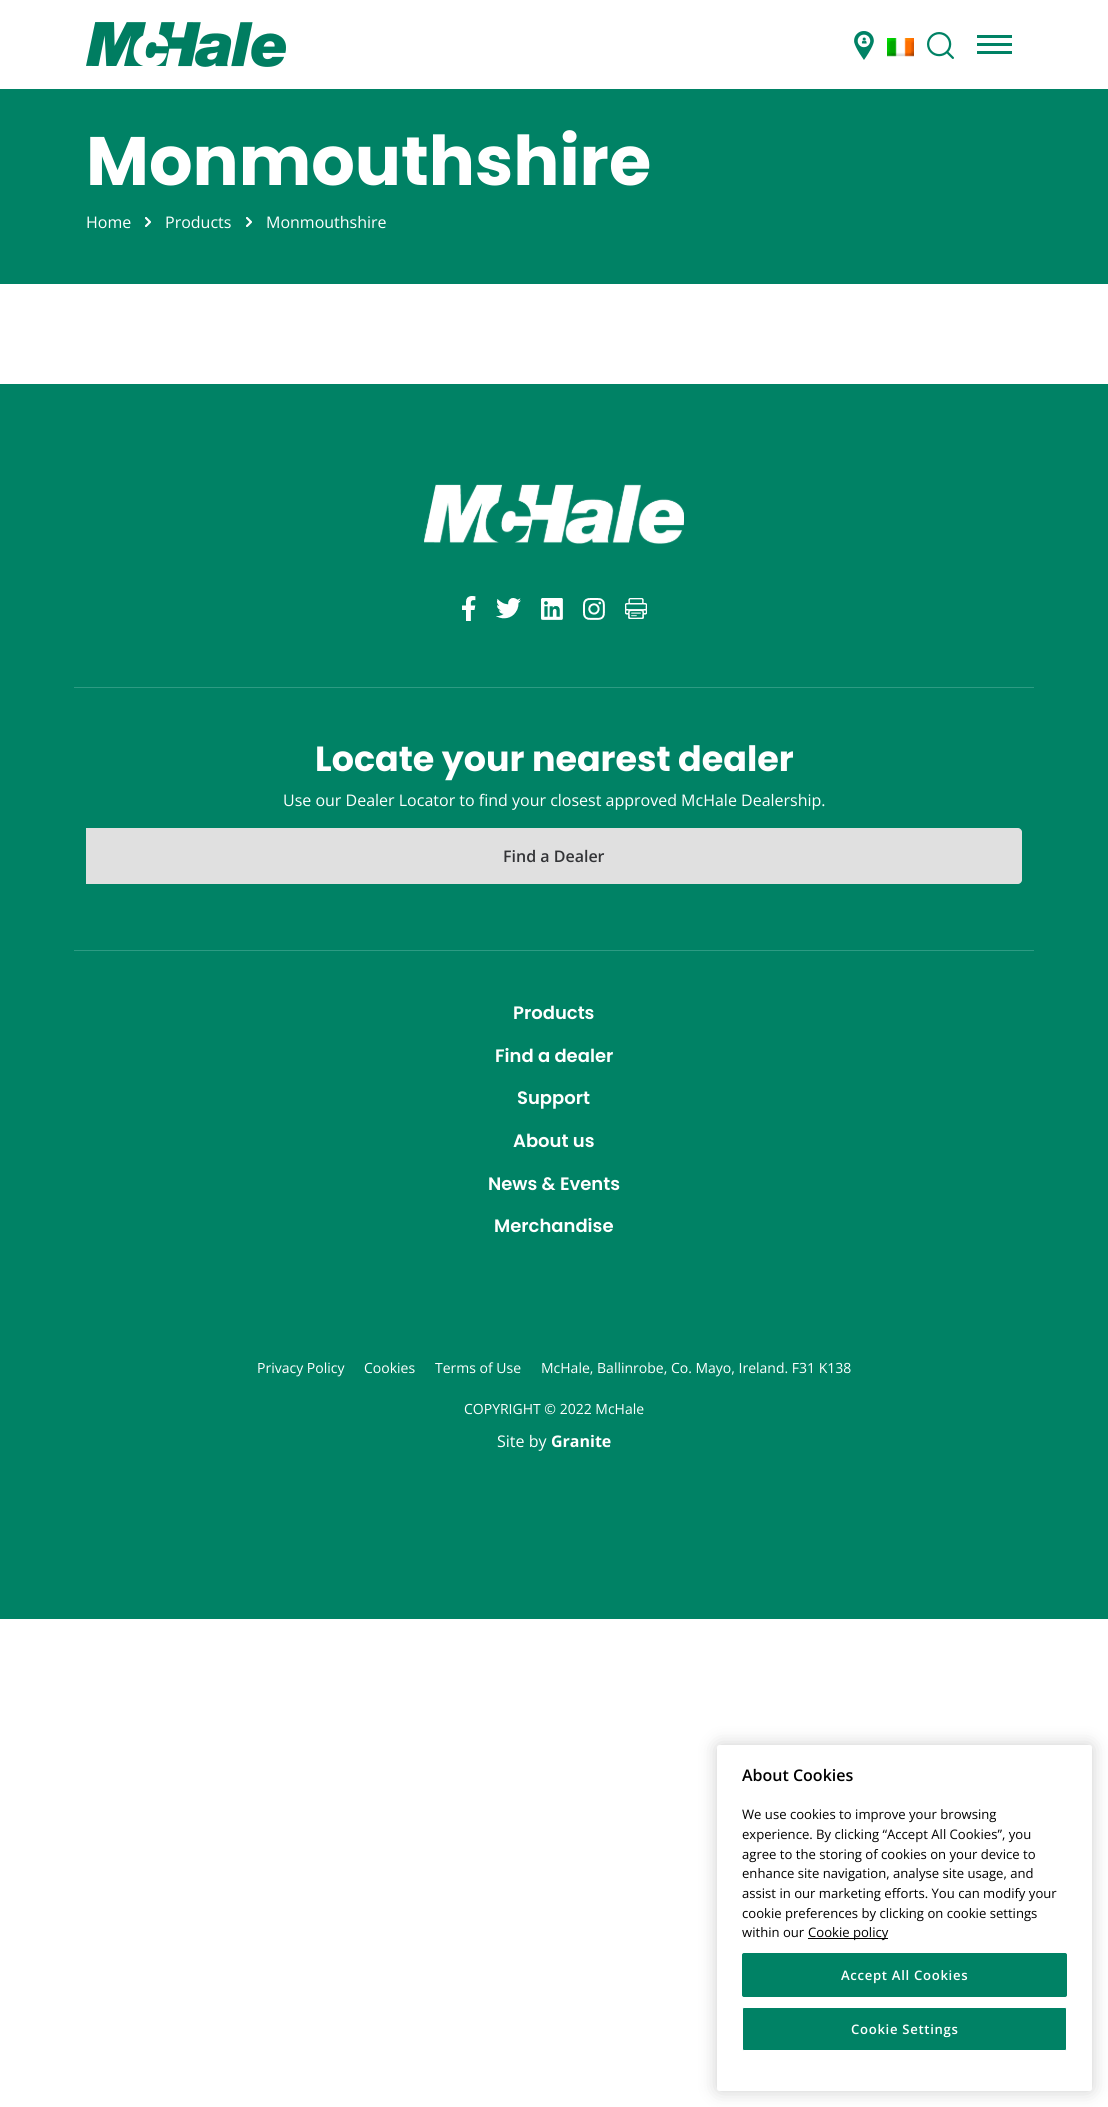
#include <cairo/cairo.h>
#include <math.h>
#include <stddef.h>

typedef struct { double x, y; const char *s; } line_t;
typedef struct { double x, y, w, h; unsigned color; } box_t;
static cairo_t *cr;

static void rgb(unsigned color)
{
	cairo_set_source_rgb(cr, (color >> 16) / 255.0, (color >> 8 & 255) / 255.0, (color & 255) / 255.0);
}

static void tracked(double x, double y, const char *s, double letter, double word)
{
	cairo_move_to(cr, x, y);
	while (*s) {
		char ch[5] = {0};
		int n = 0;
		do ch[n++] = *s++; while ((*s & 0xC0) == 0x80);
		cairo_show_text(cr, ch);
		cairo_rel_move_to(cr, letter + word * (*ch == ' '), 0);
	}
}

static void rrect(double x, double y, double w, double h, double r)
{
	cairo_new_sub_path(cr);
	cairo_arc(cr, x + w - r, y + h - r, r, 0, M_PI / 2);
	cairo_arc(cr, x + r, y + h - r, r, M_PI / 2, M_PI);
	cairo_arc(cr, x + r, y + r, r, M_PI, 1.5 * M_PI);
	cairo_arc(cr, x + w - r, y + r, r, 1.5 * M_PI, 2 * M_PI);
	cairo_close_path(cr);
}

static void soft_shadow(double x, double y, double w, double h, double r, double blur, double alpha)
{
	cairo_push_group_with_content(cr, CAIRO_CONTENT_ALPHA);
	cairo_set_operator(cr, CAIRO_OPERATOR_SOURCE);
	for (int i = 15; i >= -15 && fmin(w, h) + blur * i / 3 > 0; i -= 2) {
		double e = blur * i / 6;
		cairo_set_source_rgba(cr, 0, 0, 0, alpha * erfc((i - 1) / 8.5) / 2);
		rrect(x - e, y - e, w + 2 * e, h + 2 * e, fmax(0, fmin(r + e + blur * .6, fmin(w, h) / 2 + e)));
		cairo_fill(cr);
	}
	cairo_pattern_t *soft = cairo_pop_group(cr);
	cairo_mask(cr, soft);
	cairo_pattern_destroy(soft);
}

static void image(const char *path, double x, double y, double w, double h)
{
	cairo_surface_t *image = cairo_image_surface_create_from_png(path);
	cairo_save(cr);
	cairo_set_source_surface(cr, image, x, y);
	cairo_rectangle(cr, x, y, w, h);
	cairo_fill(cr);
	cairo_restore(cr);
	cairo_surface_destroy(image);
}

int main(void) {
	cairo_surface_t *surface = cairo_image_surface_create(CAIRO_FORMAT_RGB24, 1108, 2107);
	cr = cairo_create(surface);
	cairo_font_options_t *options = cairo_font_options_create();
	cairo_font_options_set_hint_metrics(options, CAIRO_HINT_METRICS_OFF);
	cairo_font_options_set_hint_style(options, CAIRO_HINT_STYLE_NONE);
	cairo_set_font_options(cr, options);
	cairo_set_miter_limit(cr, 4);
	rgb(0xffffff);
	cairo_paint(cr);
	image("img/1.png", 86, 22, 200, 45);
	image("img/2.png", 854, 31, 20, 29);
	image("img/3.png", 887, 38, 27, 19);
	image("img/4.png", 927, 32, 27, 27);
	{
		static const box_t items[] = {
			{977, 35, 35, 3, 0x008265},
			{977, 43, 35, 3, 0x008265},
			{977, 51, 35, 3, 0x008265},
			{0, 89, 1108, 195, 0x008265},
		};
		for (size_t i = 0; i < sizeof items / sizeof *items; i++) {
			rgb(items[i].color);
			cairo_rectangle(cr, items[i].x, items[i].y, items[i].w, items[i].h);
			cairo_fill(cr);
		}
	}
	image("img/5.png", 145, 217, 6, 10);
	image("img/5.png", 246, 217, 6, 10);
	cairo_rectangle(cr, 0, 384, 1108, 1235);
	cairo_fill(cr);
	image("img/6.png", 424, 484, 260, 60);
	image("img/7.png", 462, 596, 14, 25);
	image("img/8.png", 496, 598, 25, 21);
	image("img/9.png", 541, 598, 22, 22);
	image("img/10.png", 583, 598, 22, 22);
	image("img/11.png", 625, 598, 22, 21);
	rgb(0x2d9b83);
	cairo_rectangle(cr, 74, 687, 960, 1);
	cairo_fill(cr);
	cairo_rectangle(cr, 74, 950, 960, 1);
	cairo_fill(cr);
	rgb(0xe0e0e0);
	cairo_new_path(cr);
	cairo_move_to(cr, 86, 828);
	cairo_line_to(cr, 1018, 828);
	cairo_curve_to(cr, 1020, 828, 1022, 830, 1022, 832);
	cairo_line_to(cr, 1022, 880);
	cairo_curve_to(cr, 1022, 882, 1020, 884, 1018, 884);
	cairo_line_to(cr, 86, 884);
	cairo_close_path(cr);
	cairo_fill(cr);
	rgb(0x000000);
	soft_shadow(717, 1745, 375, 346, 2.5, 9, 0.2);
	rgb(0xffffff);
	rrect(717, 1745, 375, 346, 2.5);
	cairo_fill(cr);
	rgb(0x000000);
	cairo_rectangle(cr, 808, 1938, 80, 1);
	cairo_fill(cr);
	rgb(0x008265);
	rrect(742.5, 1953.5, 324, 43, 1.5);
	cairo_fill_preserve(cr);
	cairo_set_line_width(cr, 1);
	cairo_stroke(cr);
	rrect(742.5, 2007.5, 324, 43, 1.5);
	cairo_fill_preserve(cr);
	rgb(0xffffff);
	cairo_stroke(cr);
	cairo_select_font_face(cr, "Poppins", CAIRO_FONT_SLANT_NORMAL, CAIRO_FONT_WEIGHT_BOLD);
	cairo_set_font_size(cr, 68.5);
	cairo_move_to(cr, 86, 185);
	cairo_show_text(cr, "Monmouthshire");
	cairo_select_font_face(cr, "Open Sans", CAIRO_FONT_SLANT_NORMAL, CAIRO_FONT_WEIGHT_NORMAL);
	cairo_set_font_size(cr, 16);
	{
		static const line_t items[] = {
			{86, 228, "Home"},
			{165, 228, "Products"},
			{266, 228, "Monmouthshire"},
		};
		for (size_t i = 0; i < sizeof items / sizeof *items; i++) {
			cairo_move_to(cr, items[i].x, items[i].y);
			cairo_show_text(cr, items[i].s);
		}
	}
	cairo_select_font_face(cr, "Poppins", CAIRO_FONT_SLANT_NORMAL, CAIRO_FONT_WEIGHT_BOLD);
	cairo_set_font_size(cr, 34.9);
	cairo_move_to(cr, 315, 771);
	cairo_show_text(cr, "Locate your nearest dealer");
	cairo_select_font_face(cr, "Open Sans", CAIRO_FONT_SLANT_NORMAL, CAIRO_FONT_WEIGHT_NORMAL);
	cairo_set_font_size(cr, 16);
	cairo_move_to(cr, 283, 806);
	cairo_show_text(cr, "Use our Dealer Locator to find your closest approved McHale Dealership.");
	cairo_select_font_face(cr, "Open Sans SemiBold", CAIRO_FONT_SLANT_NORMAL, CAIRO_FONT_WEIGHT_NORMAL);
	rgb(0x333437);
	cairo_move_to(cr, 503, 862);
	cairo_show_text(cr, "Find a Dealer");
	cairo_select_font_face(cr, "Poppins SemiBold", CAIRO_FONT_SLANT_NORMAL, CAIRO_FONT_WEIGHT_NORMAL);
	cairo_set_font_size(cr, 18);
	rgb(0xffffff);
	{
		static const line_t items[] = {
			{513, 1019, "Products"},
			{495, 1062, "Find a dealer"},
			{517, 1104, "Support"},
			{513, 1147, "About us"},
			{488, 1190, "News & Events"},
			{494, 1232, "Merchandise"},
		};
		for (size_t i = 0; i < sizeof items / sizeof *items; i++) {
			cairo_move_to(cr, items[i].x, items[i].y);
			cairo_show_text(cr, items[i].s);
		}
	}
	cairo_select_font_face(cr, "Open Sans", CAIRO_FONT_SLANT_NORMAL, CAIRO_FONT_WEIGHT_NORMAL);
	cairo_set_font_size(cr, 14);
	{
		static const line_t items[] = {
			{257, 1373, "Privacy Policy"},
			{364, 1373, "Cookies"},
			{435, 1373, "Terms of Use"},
			{541, 1373, "McHale, Ballinrobe, Co. Mayo, Ireland. F31 K138"},
			{464, 1414, "COPYRIGHT © 2022 McHale"},
		};
		for (size_t i = 0; i < sizeof items / sizeof *items; i++) {
			cairo_move_to(cr, items[i].x, items[i].y);
			cairo_show_text(cr, items[i].s);
		}
	}
	cairo_set_font_size(cr, 16);
	cairo_move_to(cr, 497, 1447);
	cairo_show_text(cr, "Site by");
	cairo_select_font_face(cr, "Open Sans", CAIRO_FONT_SLANT_NORMAL, CAIRO_FONT_WEIGHT_BOLD);
	cairo_move_to(cr, 551, 1447);
	cairo_show_text(cr, "Granite");
	cairo_select_font_face(cr, "Open Sans SemiBold", CAIRO_FONT_SLANT_NORMAL, CAIRO_FONT_WEIGHT_NORMAL);
	rgb(0x000000);
	cairo_move_to(cr, 742, 1781);
	cairo_show_text(cr, "About Cookies");
	cairo_select_font_face(cr, "Open Sans", CAIRO_FONT_SLANT_NORMAL, CAIRO_FONT_WEIGHT_NORMAL);
	cairo_set_font_size(cr, 13.1);
	{
		static const line_t items[] = {
			{742, 1819, "We use cookies to improve your browsing"},
			{742, 1839, "experience. By clicking “Accept All Cookies”, you"},
			{742, 1859, "agree to the storing of cookies on your device to"},
			{742, 1878, "enhance site navigation, analyse site usage, and"},
			{742, 1898, "assist in our marketing efforts. You can modify your"},
			{742, 1918, "cookie preferences by clicking on cookie settings"},
			{742, 1937, "within our"},
			{808, 1937, "Cookie policy"},
		};
		for (size_t i = 0; i < sizeof items / sizeof *items; i++) {
			cairo_move_to(cr, items[i].x, items[i].y);
			cairo_show_text(cr, items[i].s);
		}
	}
	cairo_select_font_face(cr, "Open Sans SemiBold", CAIRO_FONT_SLANT_NORMAL, CAIRO_FONT_WEIGHT_NORMAL);
	rgb(0xffffff);
	tracked(841, 1980, "Accept All Cookies", 0.7, 0);
	tracked(851, 2034, "Cookie Settings", 0.7, 0);
	cairo_surface_write_to_png(surface, "page.png");
	cairo_font_options_destroy(options);
	cairo_destroy(cr);
	cairo_surface_destroy(surface);
	return 0;
}
